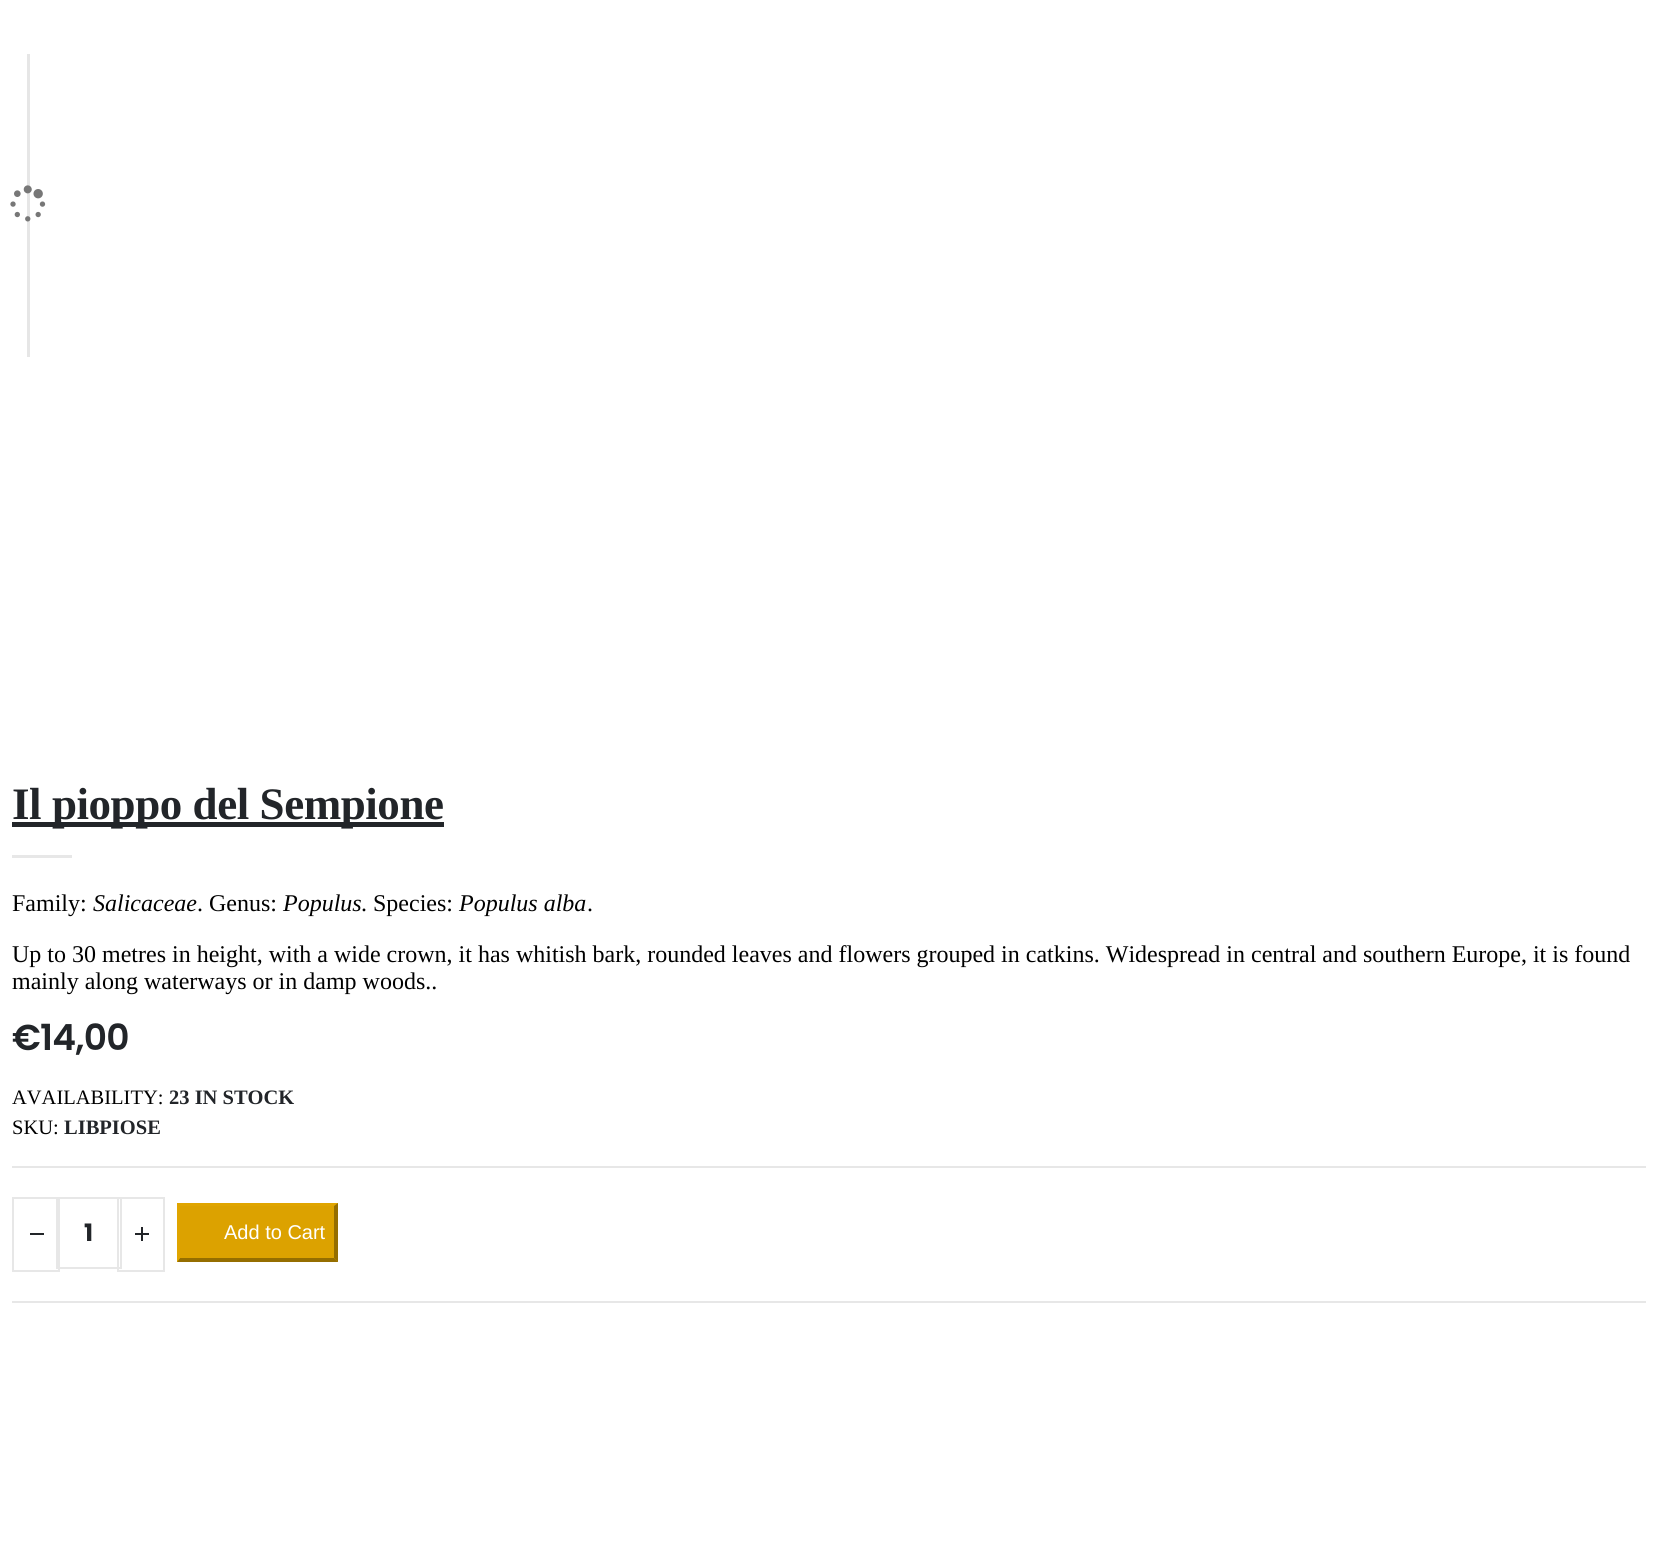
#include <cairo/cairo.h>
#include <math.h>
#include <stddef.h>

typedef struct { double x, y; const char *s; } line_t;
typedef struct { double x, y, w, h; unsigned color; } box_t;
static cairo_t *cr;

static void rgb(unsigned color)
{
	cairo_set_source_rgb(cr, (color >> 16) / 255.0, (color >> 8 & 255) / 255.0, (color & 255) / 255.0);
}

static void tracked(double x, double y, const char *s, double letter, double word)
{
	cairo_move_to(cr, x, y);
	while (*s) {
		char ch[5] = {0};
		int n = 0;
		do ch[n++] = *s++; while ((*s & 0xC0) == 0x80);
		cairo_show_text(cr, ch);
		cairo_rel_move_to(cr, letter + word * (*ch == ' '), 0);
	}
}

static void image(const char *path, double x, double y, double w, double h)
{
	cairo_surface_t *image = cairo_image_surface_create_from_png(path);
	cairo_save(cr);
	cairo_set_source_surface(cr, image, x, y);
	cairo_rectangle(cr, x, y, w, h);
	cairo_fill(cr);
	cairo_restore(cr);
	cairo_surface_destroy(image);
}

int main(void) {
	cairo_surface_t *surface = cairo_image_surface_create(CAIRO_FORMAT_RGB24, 1657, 1552);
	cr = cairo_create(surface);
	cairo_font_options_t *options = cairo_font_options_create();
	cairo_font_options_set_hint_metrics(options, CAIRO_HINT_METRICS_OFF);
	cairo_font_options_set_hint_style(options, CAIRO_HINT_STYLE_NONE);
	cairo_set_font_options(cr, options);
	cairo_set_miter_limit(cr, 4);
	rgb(0xffffff);
	cairo_paint(cr);
	rgb(0xe6e6e6);
	cairo_rectangle(cr, 27, 54, 3, 303);
	cairo_fill(cr);
	image("img/1.png", 10, 185, 36, 37);
	{
		static const box_t items[] = {
			{12, 822, 432, 5, 0x222529},
			{12, 855, 60, 3, 0xe7e7e7},
			{12, 1166, 1634, 2, 0xe7e7e7},
			{12, 1301, 1634, 2, 0xe7e7e7},
		};
		for (size_t i = 0; i < sizeof items / sizeof *items; i++) {
			rgb(items[i].color);
			cairo_rectangle(cr, items[i].x, items[i].y, items[i].w, items[i].h);
			cairo_fill(cr);
		}
	}
	cairo_rectangle(cr, 57, 1198, 64, 70);
	cairo_stroke(cr);
	cairo_rectangle(cr, 13, 1198, 46, 73);
	cairo_stroke(cr);
	rgb(0x222529);
	cairo_rectangle(cr, 30, 1233, 14, 2);
	cairo_fill(cr);
	cairo_rectangle(cr, 118, 1198, 46, 73);
	rgb(0xe7e7e7);
	cairo_stroke(cr);
	{
		static const box_t items[] = {
			{135, 1233, 14, 2, 0x222529},
			{141, 1227, 2, 14, 0x222529},
			{177, 1203, 161, 59, 0xdca200},
		};
		for (size_t i = 0; i < sizeof items / sizeof *items; i++) {
			rgb(items[i].color);
			cairo_rectangle(cr, items[i].x, items[i].y, items[i].w, items[i].h);
			cairo_fill(cr);
		}
	}
	rgb(0xe0a500);
	cairo_new_path(cr);
	cairo_move_to(cr, 177, 1203);
	cairo_line_to(cr, 338, 1203);
	cairo_line_to(cr, 334, 1206);
	cairo_line_to(cr, 180, 1206);
	cairo_close_path(cr);
	cairo_fill(cr);
	rgb(0x956e00);
	cairo_new_path(cr);
	cairo_move_to(cr, 338, 1203);
	cairo_line_to(cr, 338, 1262);
	cairo_line_to(cr, 334, 1258);
	cairo_line_to(cr, 334, 1206);
	cairo_close_path(cr);
	cairo_fill(cr);
	cairo_new_path(cr);
	cairo_move_to(cr, 338, 1262);
	cairo_line_to(cr, 177, 1262);
	cairo_line_to(cr, 180, 1258);
	cairo_line_to(cr, 334, 1258);
	cairo_close_path(cr);
	cairo_fill(cr);
	rgb(0xe0a500);
	cairo_new_path(cr);
	cairo_move_to(cr, 177, 1262);
	cairo_line_to(cr, 177, 1203);
	cairo_line_to(cr, 180, 1206);
	cairo_line_to(cr, 180, 1258);
	cairo_close_path(cr);
	cairo_fill(cr);
	cairo_select_font_face(cr, "Liberation Serif", CAIRO_FONT_SLANT_NORMAL, CAIRO_FONT_WEIGHT_BOLD);
	cairo_set_font_size(cr, 45);
	rgb(0x222529);
	tracked(12, 819, "Il pioppo del Sempione", -0.45, 0);
	cairo_select_font_face(cr, "Liberation Serif", CAIRO_FONT_SLANT_NORMAL, CAIRO_FONT_WEIGHT_NORMAL);
	cairo_set_font_size(cr, 24);
	rgb(0x000000);
	cairo_move_to(cr, 12, 911);
	cairo_show_text(cr, "Family:");
	cairo_select_font_face(cr, "Liberation Serif", CAIRO_FONT_SLANT_ITALIC, CAIRO_FONT_WEIGHT_NORMAL);
	cairo_move_to(cr, 93, 911);
	cairo_show_text(cr, "Salicaceae");
	cairo_select_font_face(cr, "Liberation Serif", CAIRO_FONT_SLANT_NORMAL, CAIRO_FONT_WEIGHT_NORMAL);
	cairo_move_to(cr, 197, 911);
	cairo_show_text(cr, ". Genus:");
	cairo_select_font_face(cr, "Liberation Serif", CAIRO_FONT_SLANT_ITALIC, CAIRO_FONT_WEIGHT_NORMAL);
	cairo_move_to(cr, 283, 911);
	cairo_show_text(cr, "Populus");
	cairo_select_font_face(cr, "Liberation Serif", CAIRO_FONT_SLANT_NORMAL, CAIRO_FONT_WEIGHT_NORMAL);
	cairo_move_to(cr, 361, 911);
	cairo_show_text(cr, ". Species:");
	cairo_select_font_face(cr, "Liberation Serif", CAIRO_FONT_SLANT_ITALIC, CAIRO_FONT_WEIGHT_NORMAL);
	cairo_move_to(cr, 459, 911);
	cairo_show_text(cr, "Populus alba");
	cairo_select_font_face(cr, "Liberation Serif", CAIRO_FONT_SLANT_NORMAL, CAIRO_FONT_WEIGHT_NORMAL);
	{
		static const line_t items[] = {
			{587, 911, "."},
			{12, 962, "Up to 30 metres in height, with a wide crown, it has whitish bark, rounded leaves and flowers grouped in catkins. Widespread in central and southern Europe, it is found"},
			{12, 989, "mainly along waterways or in damp woods.."},
		};
		for (size_t i = 0; i < sizeof items / sizeof *items; i++) {
			cairo_move_to(cr, items[i].x, items[i].y);
			cairo_show_text(cr, items[i].s);
		}
	}
	cairo_select_font_face(cr, "Poppins SemiBold", CAIRO_FONT_SLANT_NORMAL, CAIRO_FONT_WEIGHT_NORMAL);
	cairo_set_font_size(cr, 36);
	rgb(0x222529);
	tracked(12, 1050, "€14,00", -0.75, 0);
	cairo_select_font_face(cr, "Liberation Serif", CAIRO_FONT_SLANT_NORMAL, CAIRO_FONT_WEIGHT_NORMAL);
	cairo_set_font_size(cr, 20.5);
	rgb(0x000000);
	cairo_move_to(cr, 12, 1104);
	cairo_show_text(cr, "AVAILABILITY:");
	cairo_select_font_face(cr, "Liberation Serif", CAIRO_FONT_SLANT_NORMAL, CAIRO_FONT_WEIGHT_BOLD);
	rgb(0x222529);
	cairo_move_to(cr, 169, 1104);
	cairo_show_text(cr, "23 IN STOCK");
	cairo_select_font_face(cr, "Liberation Serif", CAIRO_FONT_SLANT_NORMAL, CAIRO_FONT_WEIGHT_NORMAL);
	rgb(0x000000);
	cairo_move_to(cr, 12, 1134);
	cairo_show_text(cr, "SKU:");
	cairo_select_font_face(cr, "Liberation Serif", CAIRO_FONT_SLANT_NORMAL, CAIRO_FONT_WEIGHT_BOLD);
	rgb(0x222529);
	cairo_move_to(cr, 64, 1134);
	cairo_show_text(cr, "LIBPIOSE");
	cairo_select_font_face(cr, "Poppins", CAIRO_FONT_SLANT_NORMAL, CAIRO_FONT_WEIGHT_BOLD);
	cairo_set_font_size(cr, 24);
	cairo_move_to(cr, 84, 1241);
	cairo_show_text(cr, "1");
	cairo_select_font_face(cr, "Liberation Sans", CAIRO_FONT_SLANT_NORMAL, CAIRO_FONT_WEIGHT_NORMAL);
	cairo_set_font_size(cr, 20);
	rgb(0xffffff);
	cairo_move_to(cr, 224, 1239);
	cairo_show_text(cr, "Add to Cart");
	cairo_surface_write_to_png(surface, "page.png");
	cairo_font_options_destroy(options);
	cairo_destroy(cr);
	cairo_surface_destroy(surface);
	return 0;
}
